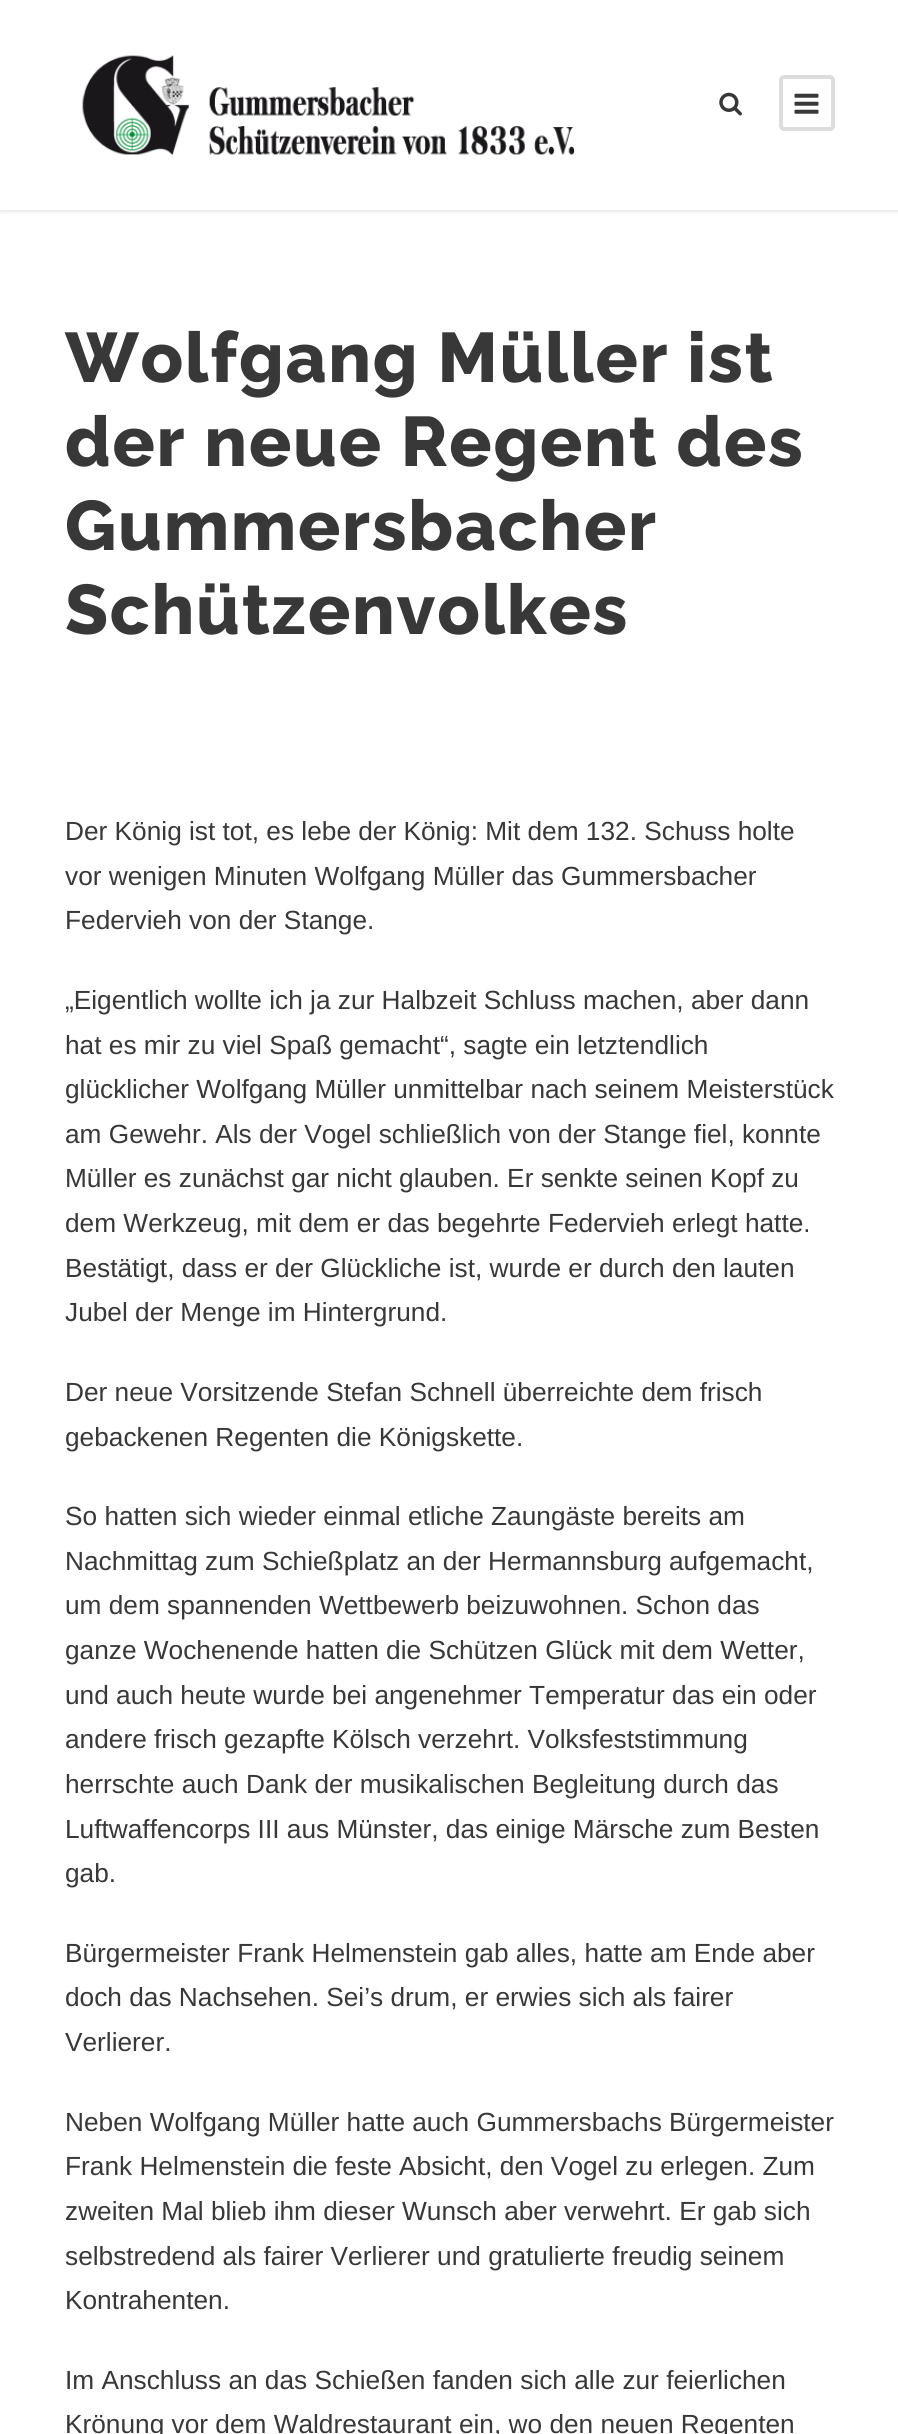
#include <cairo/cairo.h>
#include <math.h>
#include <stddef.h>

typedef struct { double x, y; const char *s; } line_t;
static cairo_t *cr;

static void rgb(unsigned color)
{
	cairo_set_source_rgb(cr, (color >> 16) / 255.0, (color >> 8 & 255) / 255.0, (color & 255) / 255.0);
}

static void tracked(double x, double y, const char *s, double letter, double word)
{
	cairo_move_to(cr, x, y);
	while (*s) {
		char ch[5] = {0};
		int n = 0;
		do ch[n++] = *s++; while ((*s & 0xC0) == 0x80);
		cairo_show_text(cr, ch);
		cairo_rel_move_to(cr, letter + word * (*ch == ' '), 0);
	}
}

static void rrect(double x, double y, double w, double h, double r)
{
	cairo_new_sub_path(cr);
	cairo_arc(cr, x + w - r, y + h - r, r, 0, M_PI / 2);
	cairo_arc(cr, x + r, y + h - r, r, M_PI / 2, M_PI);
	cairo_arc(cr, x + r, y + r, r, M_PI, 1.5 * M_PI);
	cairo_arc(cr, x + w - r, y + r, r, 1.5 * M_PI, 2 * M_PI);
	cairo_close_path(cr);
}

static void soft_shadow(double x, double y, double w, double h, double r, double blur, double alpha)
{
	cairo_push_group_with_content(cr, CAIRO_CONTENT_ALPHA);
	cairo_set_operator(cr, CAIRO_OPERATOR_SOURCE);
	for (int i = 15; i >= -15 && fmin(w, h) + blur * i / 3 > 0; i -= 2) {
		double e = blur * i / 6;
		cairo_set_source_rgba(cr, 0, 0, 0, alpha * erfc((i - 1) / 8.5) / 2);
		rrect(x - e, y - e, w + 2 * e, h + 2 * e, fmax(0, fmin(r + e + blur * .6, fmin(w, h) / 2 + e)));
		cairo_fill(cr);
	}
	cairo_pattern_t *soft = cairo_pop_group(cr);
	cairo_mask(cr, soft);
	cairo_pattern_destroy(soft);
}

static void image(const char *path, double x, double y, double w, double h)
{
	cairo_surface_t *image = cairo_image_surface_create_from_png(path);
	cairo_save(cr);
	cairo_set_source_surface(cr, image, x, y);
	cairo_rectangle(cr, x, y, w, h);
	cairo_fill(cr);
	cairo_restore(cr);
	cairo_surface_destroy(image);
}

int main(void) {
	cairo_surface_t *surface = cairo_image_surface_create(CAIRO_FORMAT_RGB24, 898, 2434);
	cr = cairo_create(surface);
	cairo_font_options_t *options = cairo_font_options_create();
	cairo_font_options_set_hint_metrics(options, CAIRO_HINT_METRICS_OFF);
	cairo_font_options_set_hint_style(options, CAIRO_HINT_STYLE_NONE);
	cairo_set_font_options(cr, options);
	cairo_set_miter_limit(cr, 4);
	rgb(0xffffff);
	cairo_paint(cr);
	cairo_save(cr);
	cairo_rectangle(cr, 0, 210, 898, 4);
	cairo_clip(cr);
	rgb(0x000000);
	soft_shadow(0, 2, 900, 210, 0, 2, 0.1);
	cairo_restore(cr);
	image("img/1.png", 82, 55, 493, 100);
	image("img/2.png", 719, 92, 23, 24);
	rrect(781, 77, 52, 52, 3);
	rgb(0xdddddd);
	cairo_set_line_width(cr, 4);
	cairo_stroke(cr);
	image("img/3.png", 794, 93, 25, 21);
	cairo_select_font_face(cr, "Raleway ExtraBold", CAIRO_FONT_SLANT_NORMAL, CAIRO_FONT_WEIGHT_NORMAL);
	cairo_set_font_size(cr, 70);
	rgb(0x383838);
	{
		static const line_t items[] = {
			{65, 382, "Wolfgang Müller ist"},
			{65, 466, "der neue Regent des"},
			{65, 550, "Gummersbacher"},
			{65, 634, "Schützenvolkes"},
		};
		for (size_t i = 0; i < sizeof items / sizeof *items; i++) {
			tracked(items[i].x, items[i].y, items[i].s, 1.75, 0);
		}
	}
	cairo_select_font_face(cr, "Liberation Sans", CAIRO_FONT_SLANT_NORMAL, CAIRO_FONT_WEIGHT_NORMAL);
	cairo_set_font_size(cr, 26.25);
	{
		static const line_t items[] = {
			{65, 840, "Der König ist tot, es lebe der König: Mit dem 132. Schuss holte"},
			{65, 885, "vor wenigen Minuten Wolfgang Müller das Gummersbacher"},
			{65, 929, "Federvieh von der Stange."},
			{65, 1009, "„Eigentlich wollte ich ja zur Halbzeit Schluss machen, aber dann"},
			{65, 1054, "hat es mir zu viel Spaß gemacht“, sagte ein letztendlich"},
			{65, 1098, "glücklicher Wolfgang Müller unmittelbar nach seinem Meisterstück"},
			{65, 1143, "am Gewehr. Als der Vogel schließlich von der Stange fiel, konnte"},
			{65, 1187, "Müller es zunächst gar nicht glauben. Er senkte seinen Kopf zu"},
			{65, 1232, "dem Werkzeug, mit dem er das begehrte Federvieh erlegt hatte."},
			{65, 1277, "Bestätigt, dass er der Glückliche ist, wurde er durch den lauten"},
			{65, 1321, "Jubel der Menge im Hintergrund."},
			{65, 1401, "Der neue Vorsitzende Stefan Schnell überreichte dem frisch"},
			{65, 1446, "gebackenen Regenten die Königskette."},
			{65, 1525, "So hatten sich wieder einmal etliche Zaungäste bereits am"},
			{65, 1570, "Nachmittag zum Schießplatz an der Hermannsburg aufgemacht,"},
			{65, 1614, "um dem spannenden Wettbewerb beizuwohnen. Schon das"},
			{65, 1659, "ganze Wochenende hatten die Schützen Glück mit dem Wetter,"},
			{65, 1704, "und auch heute wurde bei angenehmer Temperatur das ein oder"},
			{65, 1748, "andere frisch gezapfte Kölsch verzehrt. Volksfeststimmung"},
			{65, 1793, "herrschte auch Dank der musikalischen Begleitung durch das"},
			{65, 1838, "Luftwaffencorps III aus Münster, das einige Märsche zum Besten"},
			{65, 1882, "gab."},
			{65, 1962, "Bürgermeister Frank Helmenstein gab alles, hatte am Ende aber"},
			{65, 2006, "doch das Nachsehen. Sei’s drum, er erwies sich als fairer"},
			{65, 2051, "Verlierer."},
			{65, 2131, "Neben Wolfgang Müller hatte auch Gummersbachs Bürgermeister"},
			{65, 2175, "Frank Helmenstein die feste Absicht, den Vogel zu erlegen. Zum"},
			{65, 2220, "zweiten Mal blieb ihm dieser Wunsch aber verwehrt. Er gab sich"},
			{65, 2265, "selbstredend als fairer Verlierer und gratulierte freudig seinem"},
			{65, 2309, "Kontrahenten."},
			{65, 2389, "Im Anschluss an das Schießen fanden sich alle zur feierlichen"},
			{65, 2433, "Krönung vor dem Waldrestaurant ein, wo den neuen Regenten"},
		};
		for (size_t i = 0; i < sizeof items / sizeof *items; i++) {
			cairo_move_to(cr, items[i].x, items[i].y);
			cairo_show_text(cr, items[i].s);
		}
	}
	cairo_surface_write_to_png(surface, "page.png");
	cairo_font_options_destroy(options);
	cairo_destroy(cr);
	cairo_surface_destroy(surface);
	return 0;
}
